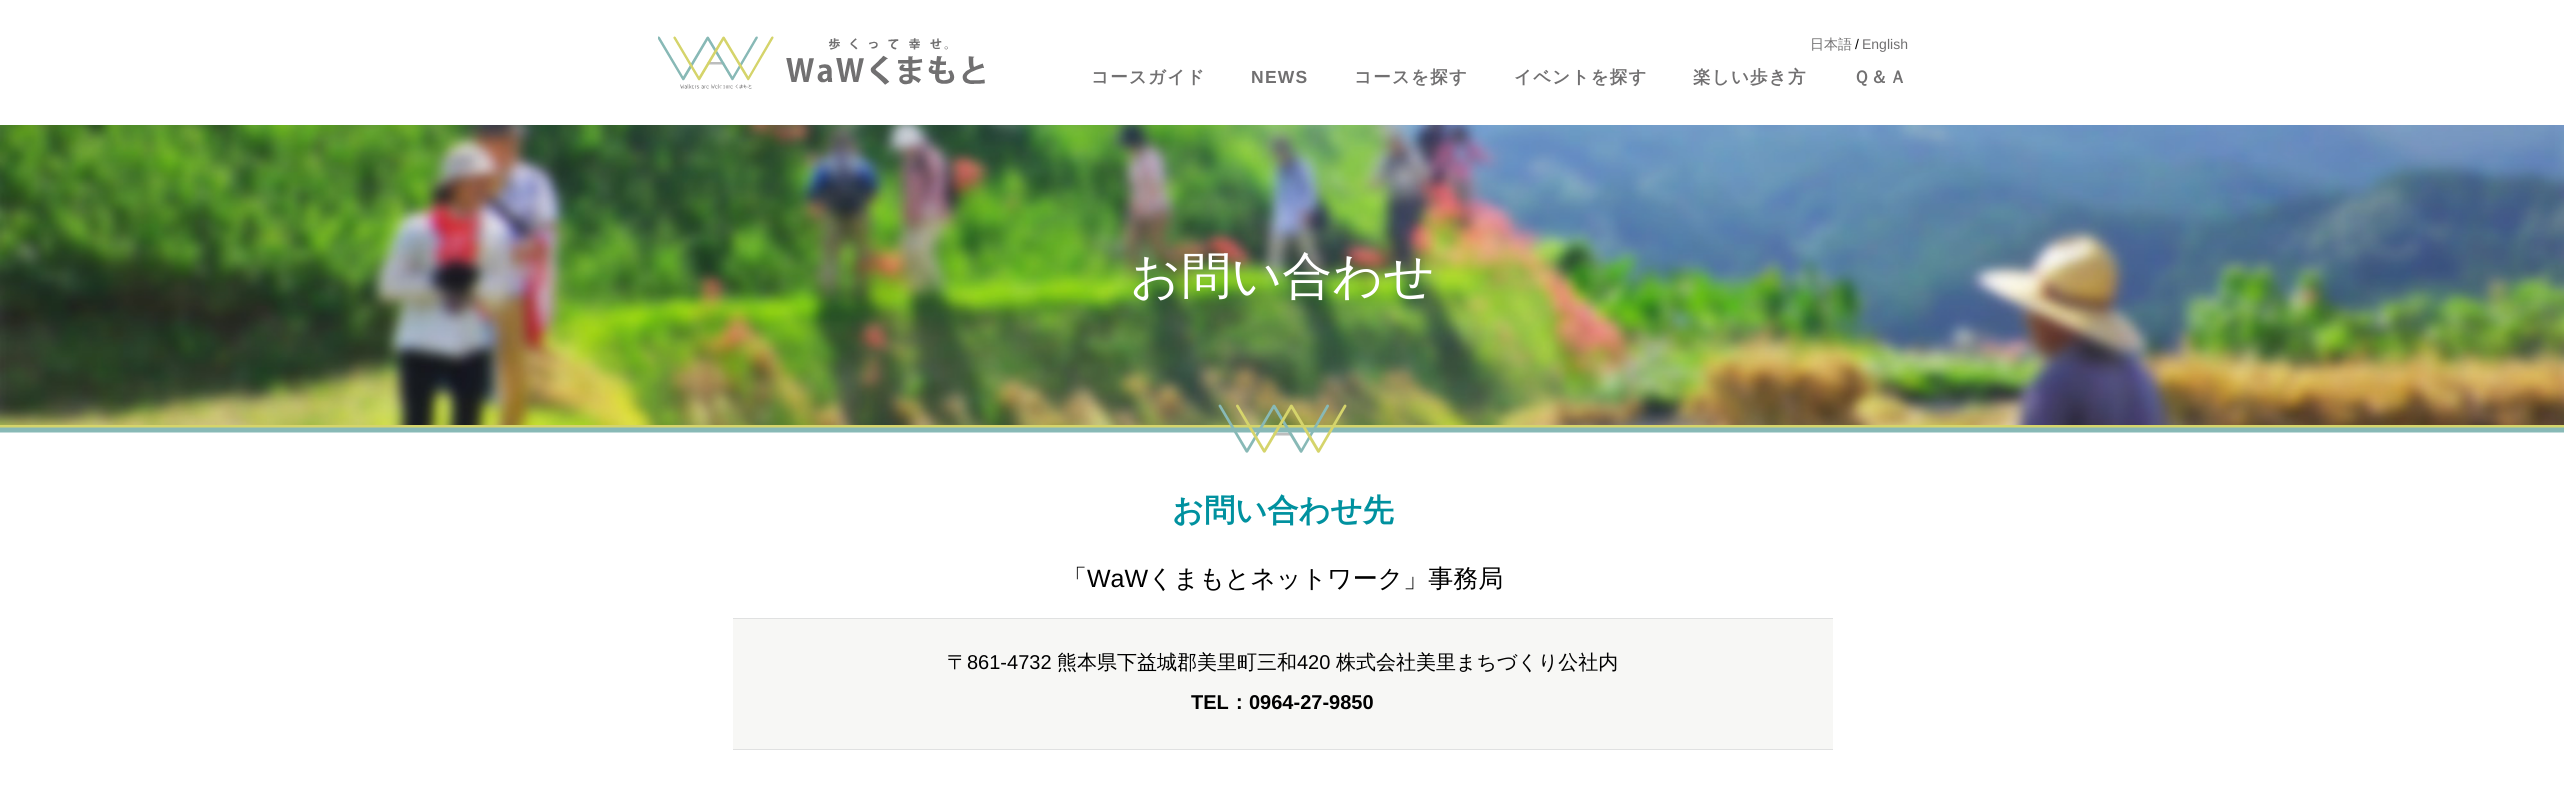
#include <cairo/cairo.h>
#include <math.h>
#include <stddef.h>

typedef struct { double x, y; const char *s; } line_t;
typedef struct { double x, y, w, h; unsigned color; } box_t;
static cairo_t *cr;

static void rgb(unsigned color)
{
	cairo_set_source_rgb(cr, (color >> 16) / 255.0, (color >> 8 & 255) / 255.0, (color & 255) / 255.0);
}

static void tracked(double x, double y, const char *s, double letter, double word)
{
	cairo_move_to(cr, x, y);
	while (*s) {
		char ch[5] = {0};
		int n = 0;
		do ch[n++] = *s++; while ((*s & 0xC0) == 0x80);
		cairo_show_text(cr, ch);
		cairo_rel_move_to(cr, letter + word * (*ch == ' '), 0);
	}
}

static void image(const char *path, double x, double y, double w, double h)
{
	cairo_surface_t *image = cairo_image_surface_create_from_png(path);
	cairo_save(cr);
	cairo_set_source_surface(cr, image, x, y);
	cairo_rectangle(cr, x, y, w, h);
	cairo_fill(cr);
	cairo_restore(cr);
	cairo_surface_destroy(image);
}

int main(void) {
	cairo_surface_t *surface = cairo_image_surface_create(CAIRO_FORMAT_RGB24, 2564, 807);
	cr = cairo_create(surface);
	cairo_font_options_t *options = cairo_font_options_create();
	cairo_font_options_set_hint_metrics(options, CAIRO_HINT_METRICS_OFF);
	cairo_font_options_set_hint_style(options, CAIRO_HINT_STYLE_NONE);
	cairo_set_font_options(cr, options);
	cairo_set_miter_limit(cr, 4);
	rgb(0xffffff);
	cairo_paint(cr);
	image("img/1.png", 658, 36, 327, 53);
	image("img/2.png", 0, 125, 2564, 300);
	image("img/4.png", 0, 425, 2564, 8);
	image("img/3.png", 1218, 404, 129, 49);
	{
		static const box_t items[] = {
			{733, 619, 1100, 130, 0xf7f7f5},
			{733, 618, 1100, 1, 0xe0e1e1},
			{733, 749, 1100, 1, 0xe0e1e1},
		};
		for (size_t i = 0; i < sizeof items / sizeof *items; i++) {
			rgb(items[i].color);
			cairo_rectangle(cr, items[i].x, items[i].y, items[i].w, items[i].h);
			cairo_fill(cr);
		}
	}
	cairo_select_font_face(cr, "WenQuanYi Zen Hei Medium", CAIRO_FONT_SLANT_NORMAL, CAIRO_FONT_WEIGHT_NORMAL);
	cairo_set_font_size(cr, 14);
	rgb(0x717071);
	cairo_move_to(cr, 1810, 49);
	cairo_show_text(cr, "日本語");
	cairo_select_font_face(cr, "Liberation Sans", CAIRO_FONT_SLANT_NORMAL, CAIRO_FONT_WEIGHT_NORMAL);
	rgb(0x000000);
	cairo_move_to(cr, 1855, 49);
	cairo_show_text(cr, "/");
	rgb(0x717071);
	cairo_move_to(cr, 1862, 49);
	cairo_show_text(cr, "English");
	cairo_select_font_face(cr, "WenQuanYi Zen Hei", CAIRO_FONT_SLANT_NORMAL, CAIRO_FONT_WEIGHT_BOLD);
	cairo_set_font_size(cr, 17.5);
	tracked(1091, 83, "コースガイド", 1.25, 0);
	cairo_select_font_face(cr, "Liberation Sans", CAIRO_FONT_SLANT_NORMAL, CAIRO_FONT_WEIGHT_BOLD);
	tracked(1251, 83, "NEWS", 1.25, 0);
	cairo_select_font_face(cr, "WenQuanYi Zen Hei", CAIRO_FONT_SLANT_NORMAL, CAIRO_FONT_WEIGHT_BOLD);
	{
		static const line_t items[] = {
			{1354, 83, "コースを探す"},
			{1514, 83, "イベントを探す"},
			{1693, 83, "楽しい歩き方"},
			{1853, 83, "Ｑ＆Ａ"},
		};
		for (size_t i = 0; i < sizeof items / sizeof *items; i++) {
			tracked(items[i].x, items[i].y, items[i].s, 1.25, 0);
		}
	}
	cairo_select_font_face(cr, "WenQuanYi Zen Hei Medium", CAIRO_FONT_SLANT_NORMAL, CAIRO_FONT_WEIGHT_NORMAL);
	cairo_set_font_size(cr, 50);
	rgb(0xffffff);
	cairo_move_to(cr, 1130, 293);
	cairo_show_text(cr, "お問い合わせ");
	cairo_select_font_face(cr, "WenQuanYi Zen Hei", CAIRO_FONT_SLANT_NORMAL, CAIRO_FONT_WEIGHT_BOLD);
	cairo_set_font_size(cr, 31.25);
	rgb(0x00919f);
	cairo_move_to(cr, 1172, 521);
	cairo_show_text(cr, "お問い合わせ先");
	cairo_select_font_face(cr, "WenQuanYi Zen Hei Medium", CAIRO_FONT_SLANT_NORMAL, CAIRO_FONT_WEIGHT_NORMAL);
	cairo_set_font_size(cr, 25);
	rgb(0x000000);
	cairo_move_to(cr, 1062, 587);
	cairo_show_text(cr, "「");
	cairo_select_font_face(cr, "Liberation Sans", CAIRO_FONT_SLANT_NORMAL, CAIRO_FONT_WEIGHT_NORMAL);
	cairo_move_to(cr, 1087, 587);
	cairo_show_text(cr, "WaW");
	cairo_select_font_face(cr, "WenQuanYi Zen Hei Medium", CAIRO_FONT_SLANT_NORMAL, CAIRO_FONT_WEIGHT_NORMAL);
	cairo_move_to(cr, 1148, 587);
	cairo_show_text(cr, "くまもとネットワーク」事務局");
	cairo_set_font_size(cr, 20);
	cairo_move_to(cr, 947, 669);
	cairo_show_text(cr, "〒");
	cairo_select_font_face(cr, "Liberation Sans", CAIRO_FONT_SLANT_NORMAL, CAIRO_FONT_WEIGHT_NORMAL);
	cairo_move_to(cr, 967, 669);
	cairo_show_text(cr, "861-4732");
	cairo_select_font_face(cr, "WenQuanYi Zen Hei Medium", CAIRO_FONT_SLANT_NORMAL, CAIRO_FONT_WEIGHT_NORMAL);
	cairo_move_to(cr, 1057, 669);
	cairo_show_text(cr, "熊本県下益城郡美里町三和");
	cairo_select_font_face(cr, "Liberation Sans", CAIRO_FONT_SLANT_NORMAL, CAIRO_FONT_WEIGHT_NORMAL);
	cairo_move_to(cr, 1297, 669);
	cairo_show_text(cr, "420");
	cairo_select_font_face(cr, "WenQuanYi Zen Hei Medium", CAIRO_FONT_SLANT_NORMAL, CAIRO_FONT_WEIGHT_NORMAL);
	cairo_move_to(cr, 1336, 669);
	cairo_show_text(cr, "株式会社美里まちづくり公社内");
	cairo_select_font_face(cr, "Liberation Sans", CAIRO_FONT_SLANT_NORMAL, CAIRO_FONT_WEIGHT_BOLD);
	cairo_move_to(cr, 1191, 709);
	cairo_show_text(cr, "TEL");
	cairo_select_font_face(cr, "WenQuanYi Zen Hei", CAIRO_FONT_SLANT_NORMAL, CAIRO_FONT_WEIGHT_BOLD);
	cairo_move_to(cr, 1229, 709);
	cairo_show_text(cr, "：");
	cairo_select_font_face(cr, "Liberation Sans", CAIRO_FONT_SLANT_NORMAL, CAIRO_FONT_WEIGHT_BOLD);
	cairo_move_to(cr, 1249, 709);
	cairo_show_text(cr, "0964-27-9850");
	cairo_surface_write_to_png(surface, "page.png");
	cairo_font_options_destroy(options);
	cairo_destroy(cr);
	cairo_surface_destroy(surface);
	return 0;
}
